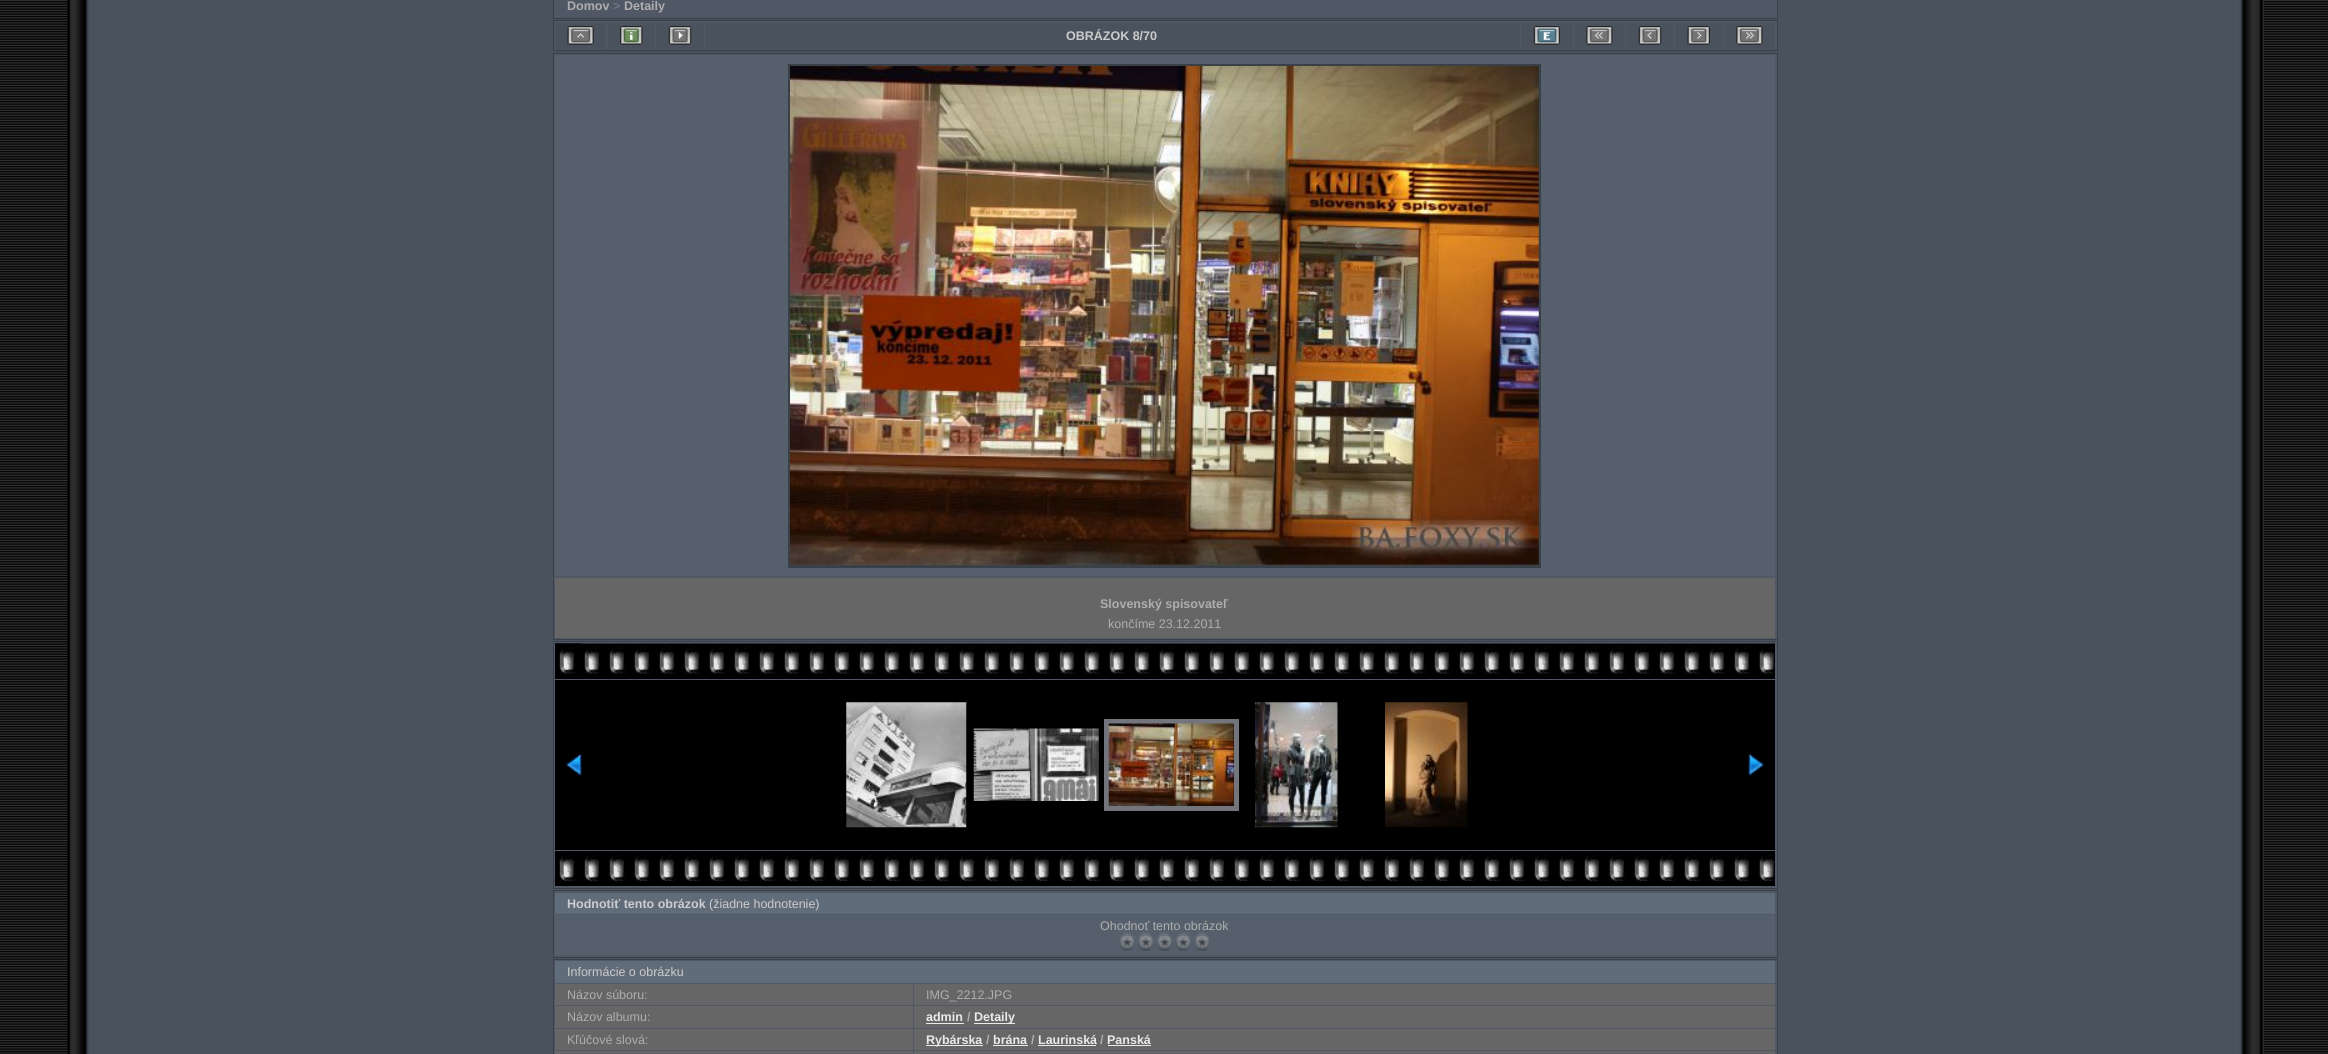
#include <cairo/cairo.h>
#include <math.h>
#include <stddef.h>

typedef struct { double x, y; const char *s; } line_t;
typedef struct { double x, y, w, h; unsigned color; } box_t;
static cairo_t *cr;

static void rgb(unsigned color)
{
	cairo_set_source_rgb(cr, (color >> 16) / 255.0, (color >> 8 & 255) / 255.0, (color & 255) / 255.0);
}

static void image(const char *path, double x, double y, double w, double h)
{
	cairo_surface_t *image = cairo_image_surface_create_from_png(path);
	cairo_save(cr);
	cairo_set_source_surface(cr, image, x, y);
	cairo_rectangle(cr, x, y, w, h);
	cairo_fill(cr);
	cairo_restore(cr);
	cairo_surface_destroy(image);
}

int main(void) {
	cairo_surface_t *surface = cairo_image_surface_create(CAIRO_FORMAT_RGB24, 2328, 1054);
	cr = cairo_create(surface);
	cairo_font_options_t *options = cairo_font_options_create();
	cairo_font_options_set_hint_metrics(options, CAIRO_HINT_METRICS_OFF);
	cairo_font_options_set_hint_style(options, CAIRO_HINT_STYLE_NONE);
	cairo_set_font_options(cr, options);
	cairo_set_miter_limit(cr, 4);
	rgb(0xffffff);
	cairo_paint(cr);
	image("img/1.png", 0, 0, 2328, 1054);
	image("img/2.png", 67, 0, 23, 1054);
	rgb(0x49525d);
	cairo_rectangle(cr, 90, 0, 2149, 1054);
	cairo_fill(cr);
	rgb(0x4f5864);
	cairo_rectangle(cr, 553.5, -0.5, 1224, 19);
	cairo_fill_preserve(cr);
	rgb(0x394049);
	cairo_set_line_width(cr, 1);
	cairo_stroke(cr);
	rgb(0x4f5864);
	cairo_rectangle(cr, 553.5, 20.5, 1224, 30);
	cairo_fill_preserve(cr);
	rgb(0x394049);
	cairo_stroke(cr);
	rgb(0x49525d);
	cairo_rectangle(cr, 555, 23, 51, 26);
	cairo_fill(cr);
	image("img/3.png", 567, 26, 27, 19);
	cairo_rectangle(cr, 608, 23, 47, 26);
	cairo_fill(cr);
	image("img/4.png", 620, 26, 23, 19);
	cairo_rectangle(cr, 656, 23, 48, 26);
	cairo_fill(cr);
	image("img/5.png", 668, 26, 24, 19);
	cairo_rectangle(cr, 705, 23, 815, 26);
	cairo_fill(cr);
	cairo_rectangle(cr, 1521, 23, 52, 26);
	cairo_fill(cr);
	image("img/6.png", 1533, 26, 27, 19);
	cairo_rectangle(cr, 1574, 23, 51, 26);
	cairo_fill(cr);
	image("img/7.png", 1586, 26, 27, 19);
	cairo_rectangle(cr, 1626, 23, 48, 26);
	cairo_fill(cr);
	image("img/8.png", 1638, 26, 24, 19);
	cairo_rectangle(cr, 1675, 23, 48, 26);
	cairo_fill(cr);
	image("img/9.png", 1687, 26, 23, 19);
	cairo_rectangle(cr, 1724, 23, 51, 26);
	cairo_fill(cr);
	image("img/10.png", 1736, 26, 27, 19);
	rgb(0x4f5864);
	cairo_rectangle(cr, 553.5, 53.5, 1224, 586);
	cairo_fill_preserve(cr);
	rgb(0x394049);
	cairo_stroke(cr);
	rgb(0x56606d);
	cairo_rectangle(cr, 555, 55, 1220, 521);
	cairo_fill(cr);
	cairo_rectangle(cr, 789.5, 65.5, 750, 501);
	rgb(0x394048);
	cairo_set_line_width(cr, 3);
	cairo_stroke(cr);
	image("img/11.png", 790, 66, 749, 499);
	rgb(0x666666);
	cairo_rectangle(cr, 555, 578, 1220, 60);
	cairo_fill(cr);
	rgb(0x4f5864);
	cairo_rectangle(cr, 553.5, 641.5, 1224, 247);
	cairo_fill_preserve(cr);
	rgb(0x394049);
	cairo_set_line_width(cr, 1);
	cairo_stroke(cr);
	rgb(0x000000);
	cairo_rectangle(cr, 555, 674, 1220, 5);
	cairo_fill(cr);
	image("img/12.png", 555, 643, 1220, 31);
	image("img/13.png", 555, 643, 25, 27);
	cairo_rectangle(cr, 555, 680, 1220, 170);
	cairo_fill(cr);
	image("img/14.png", 566, 754, 16, 21);
	image("img/15.png", 846, 702, 121, 126);
	image("img/16.png", 973, 728, 126, 73);
	cairo_rectangle(cr, 1106.5, 721.5, 130, 87);
	rgb(0x72767c);
	cairo_set_line_width(cr, 5);
	cairo_stroke(cr);
	image("img/17.png", 1108, 723, 126, 83);
	image("img/18.png", 1255, 702, 83, 126);
	image("img/19.png", 1385, 702, 83, 126);
	image("img/20.png", 1748, 754, 16, 21);
	rgb(0x000000);
	cairo_rectangle(cr, 555, 851, 1220, 35);
	cairo_fill(cr);
	image("img/21.png", 559, 851, 1216, 31);
	image("img/22.png", 563, 865, 1, 10);
	rgb(0x4f5864);
	cairo_rectangle(cr, 553.5, 890.5, 1224, 67);
	cairo_fill_preserve(cr);
	rgb(0x394049);
	cairo_set_line_width(cr, 1);
	cairo_stroke(cr);
	rgb(0x616c7a);
	cairo_rectangle(cr, 555, 893, 1220, 21);
	cairo_fill(cr);
	rgb(0x56606d);
	cairo_rectangle(cr, 555, 915, 1220, 40);
	cairo_fill(cr);
	image("img/23.png", 1117, 932, 19, 19);
	image("img/24.png", 1136, 932, 19, 19);
	image("img/25.png", 1155, 932, 19, 19);
	image("img/26.png", 1174, 932, 19, 19);
	image("img/27.png", 1193, 932, 18, 19);
	rgb(0x4f5864);
	cairo_rectangle(cr, 553.5, 959.5, 1224, 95);
	cairo_fill_preserve(cr);
	rgb(0x394049);
	cairo_stroke(cr);
	{
		static const box_t items[] = {
			{555, 961, 1220, 22, 0x616c7a},
			{555, 984, 358, 21, 0x666666},
			{914, 984, 861, 21, 0x666666},
			{555, 1006, 358, 22, 0x666666},
			{914, 1006, 861, 22, 0x666666},
			{926, 1023, 38, 1, 0xeaeaea},
			{974, 1023, 41, 1, 0xeaeaea},
			{555, 1029, 358, 21, 0x666666},
			{914, 1029, 861, 21, 0x666666},
			{926, 1045, 57, 1, 0xeaeaea},
			{993, 1045, 35, 1, 0xeaeaea},
			{1038, 1045, 58, 1, 0xeaeaea},
			{1108, 1045, 43, 1, 0xeaeaea},
			{555, 1051, 358, 3, 0x666666},
			{914, 1051, 861, 3, 0x666666},
		};
		for (size_t i = 0; i < sizeof items / sizeof *items; i++) {
			rgb(items[i].color);
			cairo_rectangle(cr, items[i].x, items[i].y, items[i].w, items[i].h);
			cairo_fill(cr);
		}
	}
	image("img/29.png", 2262, 1, 2, 1053);
	image("img/28.png", 2239, 0, 24, 1054);
	cairo_select_font_face(cr, "Liberation Sans", CAIRO_FONT_SLANT_NORMAL, CAIRO_FONT_WEIGHT_BOLD);
	cairo_set_font_size(cr, 12.5);
	rgb(0xaeaeae);
	cairo_move_to(cr, 567, 10);
	cairo_show_text(cr, "Domov");
	rgb(0x6a7786);
	cairo_move_to(cr, 613, 10);
	cairo_show_text(cr, ">");
	rgb(0xaeaeae);
	cairo_move_to(cr, 624, 10);
	cairo_show_text(cr, "Detaily");
	rgb(0xcccccc);
	cairo_move_to(cr, 1066, 40);
	cairo_show_text(cr, "OBRÁZOK 8/70");
	rgb(0xaeaeae);
	cairo_move_to(cr, 1100, 608);
	cairo_show_text(cr, "Slovenský spisovateľ");
	cairo_select_font_face(cr, "Liberation Sans", CAIRO_FONT_SLANT_NORMAL, CAIRO_FONT_WEIGHT_NORMAL);
	cairo_move_to(cr, 1108, 628);
	cairo_show_text(cr, "končíme 23.12.2011");
	cairo_select_font_face(cr, "Liberation Sans", CAIRO_FONT_SLANT_NORMAL, CAIRO_FONT_WEIGHT_BOLD);
	rgb(0xcccccc);
	cairo_move_to(cr, 567, 908);
	cairo_show_text(cr, "Hodnotiť tento obrázok");
	cairo_select_font_face(cr, "Liberation Sans", CAIRO_FONT_SLANT_NORMAL, CAIRO_FONT_WEIGHT_NORMAL);
	cairo_move_to(cr, 709, 908);
	cairo_show_text(cr, "(žiadne hodnotenie)");
	rgb(0xaeaeae);
	cairo_move_to(cr, 1100, 930);
	cairo_show_text(cr, "Ohodnoť tento obrázok");
	rgb(0xcccccc);
	cairo_move_to(cr, 567, 976);
	cairo_show_text(cr, "Informácie o obrázku");
	rgb(0xaeaeae);
	{
		static const line_t items[] = {
			{567, 999, "Názov súboru:"},
			{926, 999, "IMG_2212.JPG"},
			{567, 1021, "Názov albumu:"},
		};
		for (size_t i = 0; i < sizeof items / sizeof *items; i++) {
			cairo_move_to(cr, items[i].x, items[i].y);
			cairo_show_text(cr, items[i].s);
		}
	}
	cairo_select_font_face(cr, "Liberation Sans", CAIRO_FONT_SLANT_NORMAL, CAIRO_FONT_WEIGHT_BOLD);
	rgb(0xeaeaea);
	cairo_move_to(cr, 926, 1021);
	cairo_show_text(cr, "admin");
	rgb(0xaeaeae);
	cairo_move_to(cr, 967, 1021);
	cairo_show_text(cr, "/");
	rgb(0xeaeaea);
	cairo_move_to(cr, 974, 1021);
	cairo_show_text(cr, "Detaily");
	cairo_select_font_face(cr, "Liberation Sans", CAIRO_FONT_SLANT_NORMAL, CAIRO_FONT_WEIGHT_NORMAL);
	rgb(0xaeaeae);
	cairo_move_to(cr, 567, 1044);
	cairo_show_text(cr, "Kľúčové slová:");
	cairo_select_font_face(cr, "Liberation Sans", CAIRO_FONT_SLANT_NORMAL, CAIRO_FONT_WEIGHT_BOLD);
	rgb(0xeaeaea);
	cairo_move_to(cr, 926, 1044);
	cairo_show_text(cr, "Rybárska");
	rgb(0xaeaeae);
	cairo_move_to(cr, 986, 1044);
	cairo_show_text(cr, "/");
	rgb(0xeaeaea);
	cairo_move_to(cr, 993, 1044);
	cairo_show_text(cr, "brána");
	rgb(0xaeaeae);
	cairo_move_to(cr, 1031, 1044);
	cairo_show_text(cr, "/");
	rgb(0xeaeaea);
	cairo_move_to(cr, 1038, 1044);
	cairo_show_text(cr, "Laurinská");
	rgb(0xaeaeae);
	cairo_move_to(cr, 1100, 1044);
	cairo_show_text(cr, "/");
	rgb(0xeaeaea);
	cairo_move_to(cr, 1107, 1044);
	cairo_show_text(cr, "Panská");
	cairo_surface_write_to_png(surface, "page.png");
	cairo_font_options_destroy(options);
	cairo_destroy(cr);
	cairo_surface_destroy(surface);
	return 0;
}
